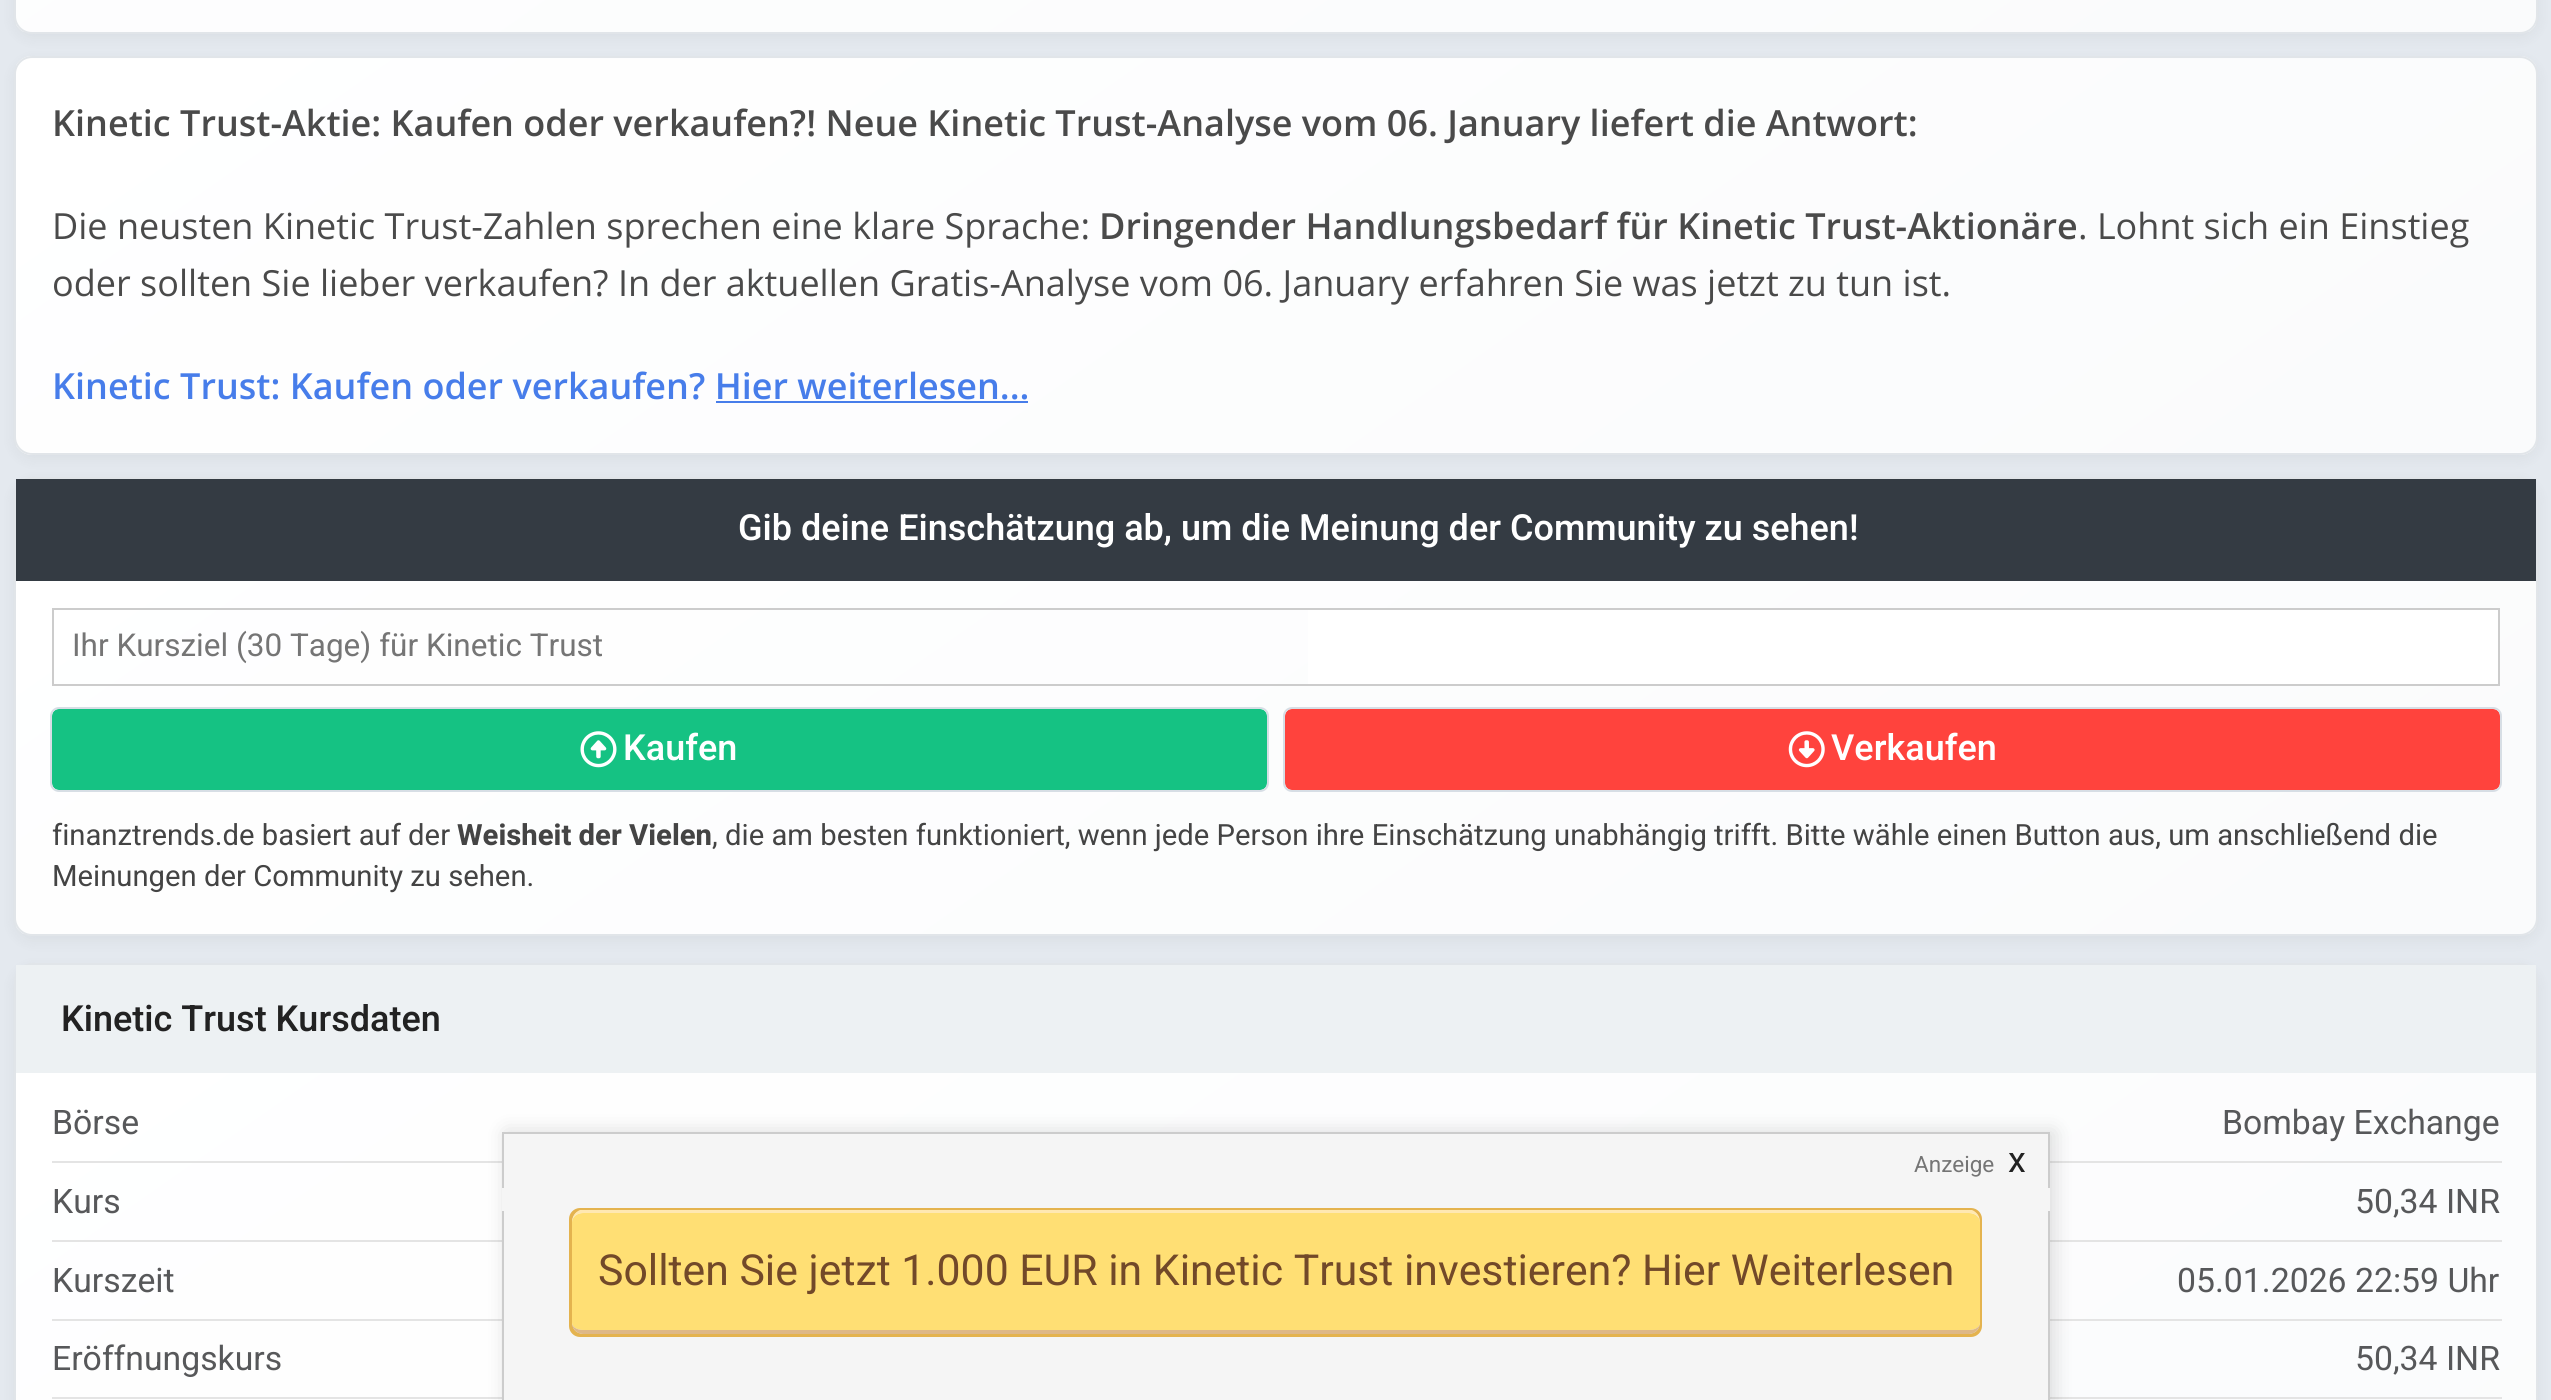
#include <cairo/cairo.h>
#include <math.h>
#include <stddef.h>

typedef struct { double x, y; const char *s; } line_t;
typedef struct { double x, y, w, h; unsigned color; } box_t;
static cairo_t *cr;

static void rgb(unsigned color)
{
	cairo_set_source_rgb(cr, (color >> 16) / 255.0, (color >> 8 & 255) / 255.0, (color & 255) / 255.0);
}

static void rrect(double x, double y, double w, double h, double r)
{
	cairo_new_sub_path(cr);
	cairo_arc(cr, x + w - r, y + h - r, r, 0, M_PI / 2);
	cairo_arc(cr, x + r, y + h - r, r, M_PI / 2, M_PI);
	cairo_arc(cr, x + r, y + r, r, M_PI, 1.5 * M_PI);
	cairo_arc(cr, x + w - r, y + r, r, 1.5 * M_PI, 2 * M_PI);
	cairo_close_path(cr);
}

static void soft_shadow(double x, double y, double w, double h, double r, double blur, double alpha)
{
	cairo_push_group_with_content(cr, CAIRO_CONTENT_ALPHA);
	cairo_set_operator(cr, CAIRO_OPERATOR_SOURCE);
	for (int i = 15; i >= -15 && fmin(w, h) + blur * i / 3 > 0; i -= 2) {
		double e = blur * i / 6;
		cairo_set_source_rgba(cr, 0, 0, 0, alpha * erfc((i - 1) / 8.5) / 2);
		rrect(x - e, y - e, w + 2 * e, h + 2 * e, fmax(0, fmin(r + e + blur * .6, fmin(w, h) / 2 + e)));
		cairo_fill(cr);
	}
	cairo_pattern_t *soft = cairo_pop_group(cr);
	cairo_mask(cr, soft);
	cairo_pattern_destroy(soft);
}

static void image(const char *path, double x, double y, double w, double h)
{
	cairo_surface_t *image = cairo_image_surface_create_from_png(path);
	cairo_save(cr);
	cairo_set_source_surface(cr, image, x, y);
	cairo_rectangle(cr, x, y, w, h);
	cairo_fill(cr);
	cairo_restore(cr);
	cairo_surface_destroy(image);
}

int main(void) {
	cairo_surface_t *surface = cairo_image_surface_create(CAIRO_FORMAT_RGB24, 2551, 1400);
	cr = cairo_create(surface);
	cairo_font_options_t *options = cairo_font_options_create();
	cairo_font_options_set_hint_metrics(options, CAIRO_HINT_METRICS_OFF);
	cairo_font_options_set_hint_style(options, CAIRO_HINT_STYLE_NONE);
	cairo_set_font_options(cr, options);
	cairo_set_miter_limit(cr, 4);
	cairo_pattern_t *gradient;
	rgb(0xe4e9ef);
	cairo_paint(cr);
	rgb(0x000000);
	soft_shadow(14, -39, 2524, 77, 18, 7, 0.05);
	cairo_save(cr);
	rrect(14, -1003, 2524, 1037, 18);
	cairo_clip(cr);
	gradient = cairo_pattern_create_linear(619, -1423, 1933, 454);
	cairo_pattern_add_color_stop_rgba(gradient, 0, 1, 1, 1, 1);
	cairo_pattern_add_color_stop_rgba(gradient, 1, 0.98, 0.984, 0.988, 1);
	cairo_set_source(cr, gradient);
	cairo_pattern_destroy(gradient);
	cairo_rectangle(cr, 16, 0, 2520, 32);
	cairo_fill(cr);
	cairo_restore(cr);
	rrect(15, -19, 2522, 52, 17);
	rgb(0xe1e5e9);
	cairo_stroke(cr);
	rgb(0x000000);
	soft_shadow(14, 61, 2524, 398, 18, 7, 0.05);
	cairo_save(cr);
	rrect(14, 56, 2524, 399, 18);
	cairo_clip(cr);
	gradient = cairo_pattern_create_linear(769, -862, 1783, 586);
	cairo_pattern_add_color_stop_rgba(gradient, 0, 1, 1, 1, 1);
	cairo_pattern_add_color_stop_rgba(gradient, 1, 0.98, 0.984, 0.988, 1);
	cairo_set_source(cr, gradient);
	cairo_pattern_destroy(gradient);
	cairo_rectangle(cr, 16, 56, 2520, 3);
	cairo_fill(cr);
	gradient = cairo_pattern_create_linear(769, -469, 1783, 979);
	cairo_pattern_add_color_stop_rgba(gradient, 0, 1, 1, 1, 1);
	cairo_pattern_add_color_stop_rgba(gradient, 1, 0.98, 0.984, 0.988, 1);
	cairo_set_source(cr, gradient);
	cairo_pattern_destroy(gradient);
	cairo_rectangle(cr, 16, 59, 2520, 393);
	cairo_fill(cr);
	gradient = cairo_pattern_create_linear(769, -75, 1783, 1373);
	cairo_pattern_add_color_stop_rgba(gradient, 0, 1, 1, 1, 1);
	cairo_pattern_add_color_stop_rgba(gradient, 1, 0.98, 0.984, 0.988, 1);
	cairo_set_source(cr, gradient);
	cairo_pattern_destroy(gradient);
	cairo_rectangle(cr, 16, 452, 2520, 3);
	cairo_fill(cr);
	cairo_restore(cr);
	rrect(15, 57, 2522, 397, 17);
	rgb(0xe1e5e9);
	cairo_stroke(cr);
	rgb(0x477dea);
	cairo_rectangle(cr, 716, 401, 312, 2);
	cairo_fill(cr);
	rgb(0x000000);
	soft_shadow(14, 482, 2524, 459, 18, 7, 0.05);
	cairo_save(cr);
	rrect(14, 477, 2524, 459, 18);
	cairo_clip(cr);
	gradient = cairo_pattern_create_linear(754, -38, 1797, 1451);
	cairo_pattern_add_color_stop_rgba(gradient, 0, 1, 1, 1, 1);
	cairo_pattern_add_color_stop_rgba(gradient, 1, 0.98, 0.984, 0.988, 1);
	cairo_set_source(cr, gradient);
	cairo_pattern_destroy(gradient);
	cairo_rectangle(cr, 16, 581, 2520, 353);
	cairo_fill(cr);
	cairo_restore(cr);
	rrect(15, 478, 2522, 457, 17);
	rgb(0xe1e5e9);
	cairo_stroke(cr);
	rgb(0x343b43);
	cairo_rectangle(cr, 16, 479, 2520, 102);
	cairo_fill(cr);
	rgb(0xffffff);
	cairo_rectangle(cr, 1308, 610, 1190, 74);
	cairo_fill(cr);
	cairo_rectangle(cr, 53, 609, 2446, 76);
	rgb(0xcccccc);
	cairo_stroke(cr);
	rgb(0x15c283);
	rrect(52, 709, 1215, 81, 7);
	cairo_fill(cr);
	image("img/1.png", 580, 731, 37, 37);
	rrect(51, 708, 1217, 83, 8);
	rgb(0xd7dee5);
	cairo_stroke(cr);
	rgb(0xff433d);
	rrect(1285, 709, 1215, 81, 7);
	cairo_fill(cr);
	image("img/2.png", 1788, 731, 37, 37);
	rrect(1284, 708, 1217, 83, 8);
	rgb(0xd7dee5);
	cairo_stroke(cr);
	rgb(0x000000);
	soft_shadow(14, 968, 2524, 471, 18, 7, 0.05);
	gradient = cairo_pattern_create_linear(659, 515, 1893, 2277);
	cairo_pattern_add_color_stop_rgba(gradient, 0, 1, 1, 1, 1);
	cairo_pattern_add_color_stop_rgba(gradient, 1, 0.98, 0.984, 0.988, 1);
	cairo_set_source(cr, gradient);
	cairo_pattern_destroy(gradient);
	cairo_rectangle(cr, 16, 1073, 2520, 327);
	cairo_fill(cr);
	rrect(15, 964, 2522, 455, 17);
	rgb(0xe1e5e9);
	cairo_stroke(cr);
	{
		static const box_t items[] = {
			{16, 965, 2520, 108, 0xedf1f3},
			{52, 1161, 2450, 2, 0xe4e4e4},
			{52, 1240, 2450, 2, 0xe4e4e4},
			{52, 1319, 2450, 2, 0xe4e4e4},
			{52, 1397, 2450, 2, 0xe4e4e4},
		};
		for (size_t i = 0; i < sizeof items / sizeof *items; i++) {
			rgb(items[i].color);
			cairo_rectangle(cr, items[i].x, items[i].y, items[i].w, items[i].h);
			cairo_fill(cr);
		}
	}
	rgb(0x000000);
	soft_shadow(506, 1132, 1548, 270, 0, 10, 0.14);
	{
		static const box_t items[] = {
			{502, 1134, 1548, 266, 0xf5f5f5},
			{502, 1132, 1548, 2, 0xcccccc},
			{2048, 1132, 2, 56, 0xcccccc},
			{502, 1132, 2, 56, 0xcccccc},
			{2048, 1211, 2, 189, 0xcccccc},
			{502, 1211, 2, 189, 0xcccccc},
		};
		for (size_t i = 0; i < sizeof items / sizeof *items; i++) {
			rgb(items[i].color);
			cairo_rectangle(cr, items[i].x, items[i].y, items[i].w, items[i].h);
			cairo_fill(cr);
		}
	}
	rgb(0xe4b34f);
	cairo_new_path(cr);
	cairo_move_to(cr, 580, 1208);
	cairo_curve_to(cr, 574, 1208, 569, 1213, 569, 1219);
	cairo_line_to(cr, 569, 1321);
	cairo_curve_to(cr, 569, 1325, 571, 1328, 574, 1330);
	cairo_curve_to(cr, 573, 1328, 572, 1326, 572, 1323);
	cairo_line_to(cr, 572, 1222);
	cairo_curve_to(cr, 572, 1216, 577, 1210, 583, 1210);
	cairo_line_to(cr, 1969, 1210);
	cairo_curve_to(cr, 1972, 1210, 1975, 1212, 1977, 1214);
	cairo_curve_to(cr, 1975, 1210, 1971, 1208, 1967, 1208);
	cairo_close_path(cr);
	cairo_fill(cr);
	cairo_new_path(cr);
	cairo_move_to(cr, 574, 1215);
	cairo_curve_to(cr, 571, 1217, 569, 1220, 569, 1224);
	cairo_line_to(cr, 569, 1326);
	cairo_curve_to(cr, 569, 1332, 574, 1337, 580, 1337);
	cairo_line_to(cr, 1967, 1337);
	cairo_curve_to(cr, 1971, 1337, 1975, 1334, 1977, 1331);
	cairo_curve_to(cr, 1975, 1333, 1972, 1334, 1969, 1334);
	cairo_line_to(cr, 583, 1334);
	cairo_curve_to(cr, 577, 1334, 572, 1329, 572, 1323);
	cairo_line_to(cr, 572, 1222);
	cairo_curve_to(cr, 572, 1219, 572, 1217, 574, 1215);
	cairo_close_path(cr);
	cairo_fill(cr);
	cairo_new_path(cr);
	cairo_move_to(cr, 585, 1208);
	cairo_curve_to(cr, 581, 1208, 578, 1210, 576, 1213);
	cairo_curve_to(cr, 578, 1211, 580, 1210, 583, 1210);
	cairo_line_to(cr, 1969, 1210);
	cairo_curve_to(cr, 1975, 1210, 1980, 1216, 1980, 1222);
	cairo_line_to(cr, 1980, 1323);
	cairo_curve_to(cr, 1980, 1325, 1979, 1328, 1978, 1330);
	cairo_curve_to(cr, 1980, 1328, 1982, 1324, 1982, 1321);
	cairo_line_to(cr, 1982, 1219);
	cairo_curve_to(cr, 1982, 1213, 1977, 1208, 1971, 1208);
	cairo_close_path(cr);
	cairo_fill(cr);
	cairo_new_path(cr);
	cairo_move_to(cr, 576, 1332);
	cairo_curve_to(cr, 577, 1335, 581, 1337, 585, 1337);
	cairo_line_to(cr, 1971, 1337);
	cairo_curve_to(cr, 1977, 1337, 1982, 1332, 1982, 1326);
	cairo_line_to(cr, 1982, 1224);
	cairo_curve_to(cr, 1982, 1221, 1981, 1218, 1978, 1216);
	cairo_curve_to(cr, 1979, 1217, 1980, 1220, 1980, 1222);
	cairo_line_to(cr, 1980, 1323);
	cairo_curve_to(cr, 1980, 1329, 1975, 1334, 1969, 1334);
	cairo_line_to(cr, 583, 1334);
	cairo_curve_to(cr, 580, 1334, 578, 1333, 576, 1332);
	cairo_close_path(cr);
	cairo_fill(cr);
	rgb(0xffdf74);
	cairo_new_path(cr);
	cairo_move_to(cr, 583, 1213);
	cairo_line_to(cr, 1969, 1213);
	cairo_curve_to(cr, 1975, 1213, 1980, 1217, 1980, 1222);
	cairo_line_to(cr, 1980, 1323);
	cairo_curve_to(cr, 1980, 1327, 1975, 1330, 1969, 1330);
	cairo_line_to(cr, 583, 1330);
	cairo_curve_to(cr, 577, 1330, 572, 1327, 572, 1323);
	cairo_line_to(cr, 572, 1222);
	cairo_curve_to(cr, 572, 1217, 577, 1213, 583, 1213);
	cairo_close_path(cr);
	cairo_fill(cr);
	rgb(0xffe8b2);
	cairo_new_path(cr);
	cairo_move_to(cr, 583, 1213);
	cairo_curve_to(cr, 577, 1213, 572, 1217, 572, 1222);
	cairo_curve_to(cr, 572, 1217, 575, 1212, 580, 1210);
	cairo_line_to(cr, 1972, 1210);
	cairo_curve_to(cr, 1977, 1212, 1980, 1217, 1980, 1222);
	cairo_curve_to(cr, 1980, 1217, 1975, 1213, 1969, 1213);
	cairo_close_path(cr);
	cairo_fill(cr);
	rgb(0xdeb887);
	cairo_new_path(cr);
	cairo_move_to(cr, 1969, 1334);
	cairo_curve_to(cr, 1975, 1334, 1980, 1329, 1980, 1323);
	cairo_curve_to(cr, 1980, 1327, 1975, 1330, 1969, 1330);
	cairo_line_to(cr, 583, 1330);
	cairo_curve_to(cr, 577, 1330, 572, 1327, 572, 1323);
	cairo_curve_to(cr, 572, 1329, 577, 1334, 583, 1334);
	cairo_close_path(cr);
	cairo_fill(cr);
	cairo_select_font_face(cr, "Open Sans SemiBold", CAIRO_FONT_SLANT_NORMAL, CAIRO_FONT_WEIGHT_NORMAL);
	cairo_set_font_size(cr, 36);
	rgb(0x4a4a4a);
	cairo_move_to(cr, 52, 136);
	cairo_show_text(cr, "Kinetic Trust-Aktie: Kaufen oder verkaufen?! Neue Kinetic Trust-Analyse vom 06. January liefert die Antwort:");
	cairo_select_font_face(cr, "Open Sans", CAIRO_FONT_SLANT_NORMAL, CAIRO_FONT_WEIGHT_NORMAL);
	cairo_move_to(cr, 52, 239);
	cairo_show_text(cr, "Die neusten Kinetic Trust-Zahlen sprechen eine klare Sprache:");
	cairo_select_font_face(cr, "Open Sans SemiBold", CAIRO_FONT_SLANT_NORMAL, CAIRO_FONT_WEIGHT_NORMAL);
	cairo_move_to(cr, 1099, 239);
	cairo_show_text(cr, "Dringender Handlungsbedarf für Kinetic Trust-Aktionäre");
	cairo_select_font_face(cr, "Open Sans", CAIRO_FONT_SLANT_NORMAL, CAIRO_FONT_WEIGHT_NORMAL);
	cairo_move_to(cr, 2078, 239);
	cairo_show_text(cr, ". Lohnt sich ein Einstieg");
	cairo_move_to(cr, 52, 296);
	cairo_show_text(cr, "oder sollten Sie lieber verkaufen? In der aktuellen Gratis-Analyse vom 06. January erfahren Sie was jetzt zu tun ist.");
	cairo_select_font_face(cr, "Open Sans SemiBold", CAIRO_FONT_SLANT_NORMAL, CAIRO_FONT_WEIGHT_NORMAL);
	rgb(0x477dea);
	cairo_move_to(cr, 52, 399);
	cairo_show_text(cr, "Kinetic Trust: Kaufen oder verkaufen? Hier weiterlesen...");
	cairo_select_font_face(cr, "Heebo Medium", CAIRO_FONT_SLANT_NORMAL, CAIRO_FONT_WEIGHT_NORMAL);
	rgb(0xffffff);
	cairo_move_to(cr, 738, 540);
	cairo_show_text(cr, "Gib deine Einschätzung ab, um die Meinung der Community zu sehen!");
	cairo_select_font_face(cr, "Heebo", CAIRO_FONT_SLANT_NORMAL, CAIRO_FONT_WEIGHT_NORMAL);
	cairo_set_font_size(cr, 31.5);
	rgb(0x757575);
	cairo_move_to(cr, 72, 656);
	cairo_show_text(cr, "Ihr Kursziel (30 Tage) für Kinetic Trust");
	cairo_select_font_face(cr, "Heebo Medium", CAIRO_FONT_SLANT_NORMAL, CAIRO_FONT_WEIGHT_NORMAL);
	cairo_set_font_size(cr, 36);
	rgb(0xffffff);
	cairo_move_to(cr, 623, 760);
	cairo_show_text(cr, "Kaufen");
	cairo_move_to(cr, 1831, 760);
	cairo_show_text(cr, "Verkaufen");
	cairo_select_font_face(cr, "Heebo", CAIRO_FONT_SLANT_NORMAL, CAIRO_FONT_WEIGHT_NORMAL);
	cairo_set_font_size(cr, 29.25);
	rgb(0x444444);
	cairo_move_to(cr, 52, 845);
	cairo_show_text(cr, "finanztrends.de basiert auf der");
	cairo_select_font_face(cr, "Heebo", CAIRO_FONT_SLANT_NORMAL, CAIRO_FONT_WEIGHT_BOLD);
	cairo_move_to(cr, 457, 845);
	cairo_show_text(cr, "Weisheit der Vielen");
	cairo_select_font_face(cr, "Heebo", CAIRO_FONT_SLANT_NORMAL, CAIRO_FONT_WEIGHT_NORMAL);
	cairo_move_to(cr, 712, 845);
	cairo_show_text(cr, ", die am besten funktioniert, wenn jede Person ihre Einschätzung unabhängig trifft. Bitte wähle einen Button aus, um anschließend die");
	cairo_move_to(cr, 52, 886);
	cairo_show_text(cr, "Meinungen der Community zu sehen.");
	cairo_select_font_face(cr, "Heebo Medium", CAIRO_FONT_SLANT_NORMAL, CAIRO_FONT_WEIGHT_NORMAL);
	cairo_set_font_size(cr, 36);
	rgb(0x222222);
	cairo_move_to(cr, 61, 1031);
	cairo_show_text(cr, "Kinetic Trust Kursdaten");
	cairo_select_font_face(cr, "Heebo", CAIRO_FONT_SLANT_NORMAL, CAIRO_FONT_WEIGHT_NORMAL);
	cairo_set_font_size(cr, 33.75);
	rgb(0x57585a);
	{
		static const line_t items[] = {
			{52, 1134, "Börse"},
			{2222, 1134, "Bombay Exchange"},
			{52, 1213, "Kurs"},
			{2355, 1213, "50,34 INR"},
			{52, 1292, "Kurszeit"},
			{2177, 1292, "05.01.2026 22:59 Uhr"},
			{52, 1370, "Eröffnungskurs"},
			{2355, 1370, "50,34 INR"},
		};
		for (size_t i = 0; i < sizeof items / sizeof *items; i++) {
			cairo_move_to(cr, items[i].x, items[i].y);
			cairo_show_text(cr, items[i].s);
		}
	}
	cairo_set_font_size(cr, 22.5);
	rgb(0x757575);
	cairo_move_to(cr, 1914, 1172);
	cairo_show_text(cr, "Anzeige");
	cairo_set_font_size(cr, 36);
	rgb(0x222222);
	cairo_move_to(cr, 2008, 1172);
	cairo_show_text(cr, "x");
	cairo_set_font_size(cr, 42.75);
	rgb(0x724929);
	cairo_move_to(cr, 598, 1285);
	cairo_show_text(cr, "Sollten Sie jetzt 1.000 EUR in Kinetic Trust investieren? Hier Weiterlesen");
	cairo_surface_write_to_png(surface, "page.png");
	cairo_font_options_destroy(options);
	cairo_destroy(cr);
	cairo_surface_destroy(surface);
	return 0;
}
